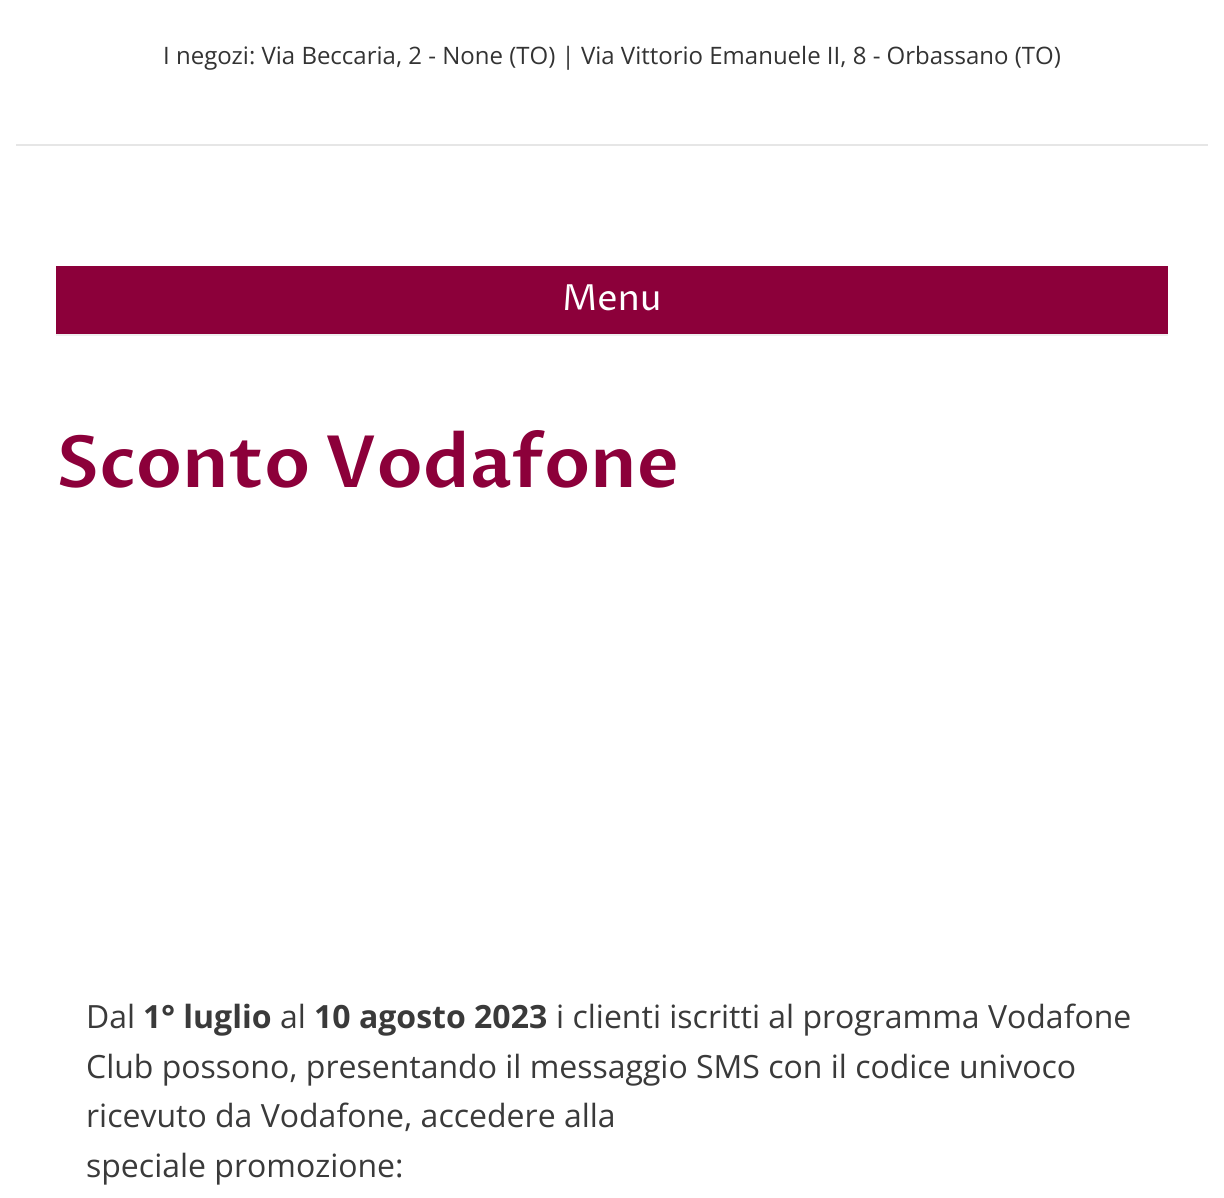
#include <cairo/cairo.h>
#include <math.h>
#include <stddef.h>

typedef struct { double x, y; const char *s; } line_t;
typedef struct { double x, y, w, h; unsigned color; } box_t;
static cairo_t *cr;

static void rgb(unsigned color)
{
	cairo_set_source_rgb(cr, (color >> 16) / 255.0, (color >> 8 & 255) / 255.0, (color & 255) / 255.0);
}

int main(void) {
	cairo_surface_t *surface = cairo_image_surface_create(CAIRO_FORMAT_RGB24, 1224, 1198);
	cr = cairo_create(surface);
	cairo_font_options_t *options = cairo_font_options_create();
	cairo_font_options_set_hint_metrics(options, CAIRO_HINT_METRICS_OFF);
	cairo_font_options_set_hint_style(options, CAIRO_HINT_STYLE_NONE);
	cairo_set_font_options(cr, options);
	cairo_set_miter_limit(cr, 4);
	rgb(0xffffff);
	cairo_paint(cr);
	{
		static const box_t items[] = {
			{16, 144, 1192, 2, 0xe6e6e6},
			{56, 334, 1112, 2, 0xefefef},
			{56, 266, 1112, 68, 0x8c003a},
		};
		for (size_t i = 0; i < sizeof items / sizeof *items; i++) {
			rgb(items[i].color);
			cairo_rectangle(cr, items[i].x, items[i].y, items[i].w, items[i].h);
			cairo_fill(cr);
		}
	}
	cairo_select_font_face(cr, "Open Sans", CAIRO_FONT_SLANT_NORMAL, CAIRO_FONT_WEIGHT_NORMAL);
	cairo_set_font_size(cr, 24);
	rgb(0x333333);
	cairo_move_to(cr, 163, 64);
	cairo_show_text(cr, "I negozi: Via Beccaria, 2 - None (TO) | Via Vittorio Emanuele II, 8 - Orbassano (TO)");
	cairo_select_font_face(cr, "Proza Libre", CAIRO_FONT_SLANT_NORMAL, CAIRO_FONT_WEIGHT_NORMAL);
	cairo_set_font_size(cr, 36);
	rgb(0xffffff);
	cairo_move_to(cr, 562, 310);
	cairo_show_text(cr, "Menu");
	cairo_select_font_face(cr, "Proza Libre SemiBold", CAIRO_FONT_SLANT_NORMAL, CAIRO_FONT_WEIGHT_NORMAL);
	cairo_set_font_size(cr, 72);
	rgb(0x8c003a);
	cairo_move_to(cr, 56, 487);
	cairo_show_text(cr, "Sconto Vodafone");
	cairo_select_font_face(cr, "Open Sans", CAIRO_FONT_SLANT_NORMAL, CAIRO_FONT_WEIGHT_NORMAL);
	cairo_set_font_size(cr, 32);
	rgb(0x3a3a3a);
	cairo_move_to(cr, 86, 1028);
	cairo_show_text(cr, "Dal");
	cairo_select_font_face(cr, "Open Sans", CAIRO_FONT_SLANT_NORMAL, CAIRO_FONT_WEIGHT_BOLD);
	cairo_move_to(cr, 143, 1028);
	cairo_show_text(cr, "1° luglio");
	cairo_select_font_face(cr, "Open Sans", CAIRO_FONT_SLANT_NORMAL, CAIRO_FONT_WEIGHT_NORMAL);
	cairo_move_to(cr, 280, 1028);
	cairo_show_text(cr, "al");
	cairo_select_font_face(cr, "Open Sans", CAIRO_FONT_SLANT_NORMAL, CAIRO_FONT_WEIGHT_BOLD);
	cairo_move_to(cr, 314, 1028);
	cairo_show_text(cr, "10 agosto 2023");
	cairo_select_font_face(cr, "Open Sans", CAIRO_FONT_SLANT_NORMAL, CAIRO_FONT_WEIGHT_NORMAL);
	{
		static const line_t items[] = {
			{556, 1028, "i clienti iscritti al programma Vodafone"},
			{86, 1078, "Club possono, presentando il messaggio SMS con il codice univoco"},
			{86, 1127, "ricevuto da Vodafone, accedere alla"},
			{86, 1177, "speciale promozione:"},
		};
		for (size_t i = 0; i < sizeof items / sizeof *items; i++) {
			cairo_move_to(cr, items[i].x, items[i].y);
			cairo_show_text(cr, items[i].s);
		}
	}
	cairo_surface_write_to_png(surface, "page.png");
	cairo_font_options_destroy(options);
	cairo_destroy(cr);
	cairo_surface_destroy(surface);
	return 0;
}
